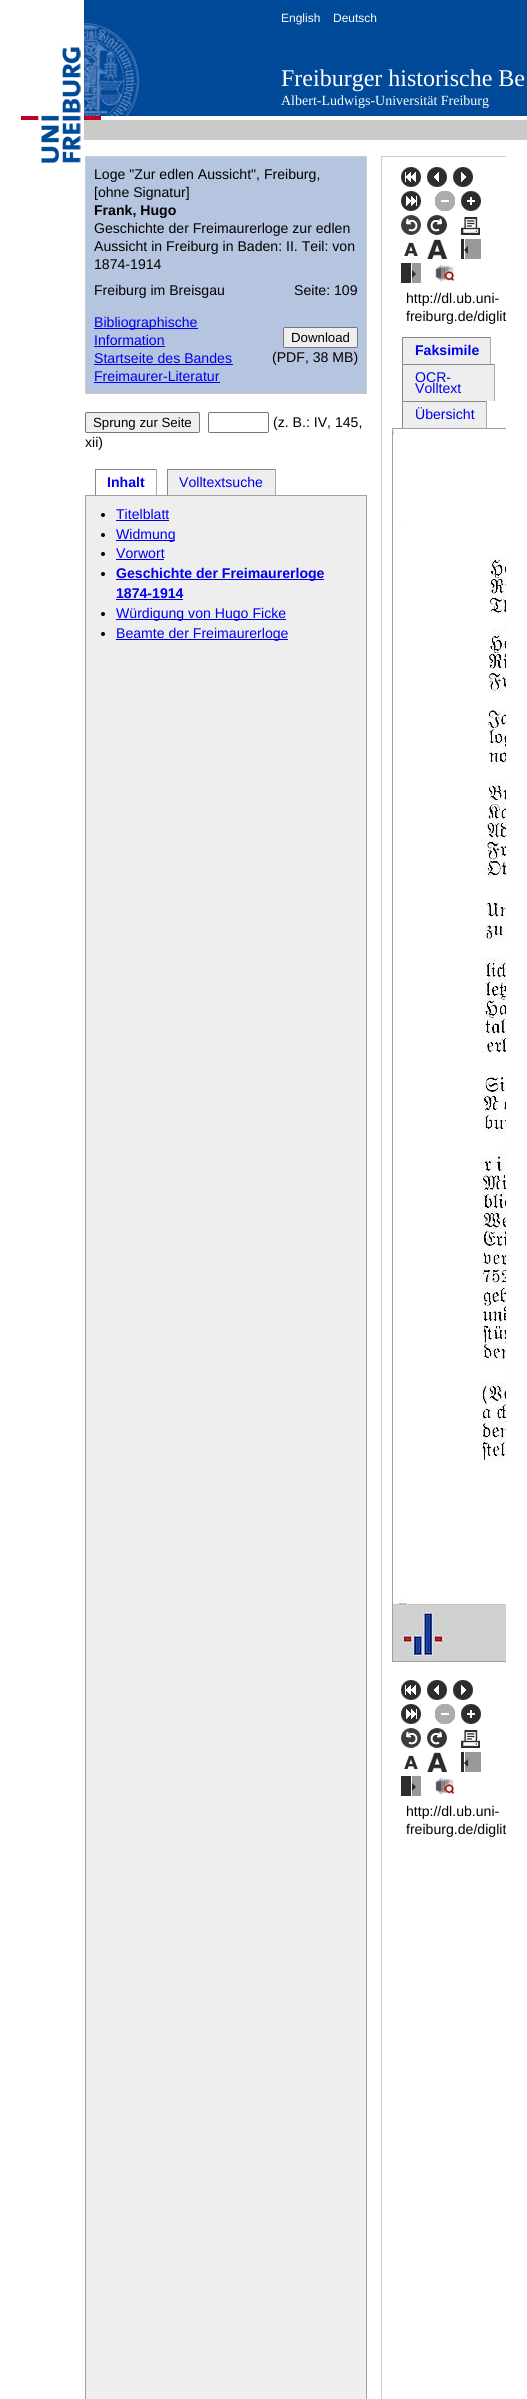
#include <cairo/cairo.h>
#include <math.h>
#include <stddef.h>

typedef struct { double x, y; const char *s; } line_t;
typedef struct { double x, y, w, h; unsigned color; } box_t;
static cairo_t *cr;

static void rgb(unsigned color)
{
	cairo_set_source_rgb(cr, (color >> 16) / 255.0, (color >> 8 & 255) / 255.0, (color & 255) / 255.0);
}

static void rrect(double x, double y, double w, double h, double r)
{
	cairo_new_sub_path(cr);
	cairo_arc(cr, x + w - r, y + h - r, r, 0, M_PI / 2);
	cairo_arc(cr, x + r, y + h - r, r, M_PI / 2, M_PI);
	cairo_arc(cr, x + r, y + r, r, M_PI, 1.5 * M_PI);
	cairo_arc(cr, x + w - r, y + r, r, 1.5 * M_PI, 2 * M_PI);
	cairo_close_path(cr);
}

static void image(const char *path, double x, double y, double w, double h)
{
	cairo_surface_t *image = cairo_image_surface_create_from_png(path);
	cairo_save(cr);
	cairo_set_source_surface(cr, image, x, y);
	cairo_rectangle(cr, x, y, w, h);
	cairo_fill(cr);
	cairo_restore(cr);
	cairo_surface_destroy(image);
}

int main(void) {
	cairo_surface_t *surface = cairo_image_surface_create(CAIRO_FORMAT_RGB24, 527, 2399);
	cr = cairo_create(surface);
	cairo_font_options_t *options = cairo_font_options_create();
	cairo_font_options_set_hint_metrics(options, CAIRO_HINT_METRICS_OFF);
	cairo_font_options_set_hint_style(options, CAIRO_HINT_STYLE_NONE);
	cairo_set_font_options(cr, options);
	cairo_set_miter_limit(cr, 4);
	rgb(0xffffff);
	cairo_paint(cr);
	image("img/1.png", 84, 0, 443, 140);
	image("img/2.png", 21, 47, 60, 116);
	image("img/3.png", 84, 23, 55, 97);
	rgb(0xb6c5df);
	cairo_rectangle(cr, 85.5, 156.5, 281, 237);
	cairo_fill_preserve(cr);
	rgb(0xcccccc);
	cairo_set_line_width(cr, 1);
	cairo_stroke(cr);
	rgb(0x0000ee);
	cairo_rectangle(cr, 94, 328, 104, 1);
	cairo_fill(cr);
	cairo_rectangle(cr, 94, 346, 71, 1);
	cairo_fill(cr);
	rgb(0xefefef);
	rrect(283.5, 327.5, 74, 20, 1.5);
	cairo_fill_preserve(cr);
	rgb(0x767676);
	cairo_stroke(cr);
	rgb(0x0000ee);
	cairo_rectangle(cr, 94, 364, 139, 1);
	cairo_fill(cr);
	cairo_rectangle(cr, 94, 382, 126, 1);
	cairo_fill(cr);
	rgb(0xefefef);
	rrect(85.5, 412.5, 114, 20, 1.5);
	cairo_fill_preserve(cr);
	rgb(0x767676);
	cairo_stroke(cr);
	rrect(208.5, 412.5, 60, 20, 1.5);
	cairo_stroke(cr);
	{
		static const box_t items[] = {
			{95, 469, 62, 1, 0x888888},
			{156, 469, 1, 26, 0xaaaaaa},
			{95, 469, 1, 26, 0x888888},
			{168, 470, 107, 25, 0xeeeeee},
			{167, 469, 109, 1, 0x888888},
			{275, 469, 1, 26, 0xaaaaaa},
			{167, 469, 1, 26, 0x888888},
		};
		for (size_t i = 0; i < sizeof items / sizeof *items; i++) {
			rgb(items[i].color);
			cairo_rectangle(cr, items[i].x, items[i].y, items[i].w, items[i].h);
			cairo_fill(cr);
		}
	}
	rgb(0xeeeeee);
	cairo_rectangle(cr, 85.5, 495.5, 281, 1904);
	cairo_fill_preserve(cr);
	rgb(0xa0a0a0);
	cairo_stroke(cr);
	rgb(0x000000);
	cairo_arc(cr, 103, 515, 2, 0, 2 * M_PI);
	cairo_fill(cr);
	rgb(0x0000ee);
	cairo_rectangle(cr, 116, 520, 53, 1);
	cairo_fill(cr);
	rgb(0x000000);
	cairo_arc(cr, 103, 535, 2, 0, 2 * M_PI);
	cairo_fill(cr);
	rgb(0x0000ee);
	cairo_rectangle(cr, 116, 540, 59, 1);
	cairo_fill(cr);
	rgb(0x000000);
	cairo_arc(cr, 103, 554, 2, 0, 2 * M_PI);
	cairo_fill(cr);
	rgb(0x0000ee);
	cairo_rectangle(cr, 116, 559, 48, 1);
	cairo_fill(cr);
	rgb(0x000000);
	cairo_arc(cr, 103, 574, 2, 0, 2 * M_PI);
	cairo_fill(cr);
	rgb(0x0000ee);
	cairo_rectangle(cr, 116, 579, 208, 1);
	cairo_fill(cr);
	cairo_rectangle(cr, 116, 599, 67, 1);
	cairo_fill(cr);
	rgb(0x000000);
	cairo_arc(cr, 103, 614, 2, 0, 2 * M_PI);
	cairo_fill(cr);
	rgb(0x0000ee);
	cairo_rectangle(cr, 116, 619, 170, 1);
	cairo_fill(cr);
	rgb(0x000000);
	cairo_arc(cr, 103, 634, 2, 0, 2 * M_PI);
	cairo_fill(cr);
	{
		static const box_t items[] = {
			{116, 639, 172, 1, 0x0000ee},
			{381, 156, 125, 1, 0xcccccc},
			{381, 156, 1, 2243, 0xcccccc},
		};
		for (size_t i = 0; i < sizeof items / sizeof *items; i++) {
			rgb(items[i].color);
			cairo_rectangle(cr, items[i].x, items[i].y, items[i].w, items[i].h);
			cairo_fill(cr);
		}
	}
	image("img/4.png", 401, 167, 20, 20);
	image("img/5.png", 427, 167, 20, 20);
	image("img/6.png", 453, 167, 20, 20);
	image("img/7.png", 401, 191, 20, 20);
	image("img/8.png", 435, 191, 20, 20);
	image("img/9.png", 461, 191, 20, 20);
	image("img/10.png", 401, 215, 20, 20);
	image("img/11.png", 427, 215, 20, 20);
	image("img/12.png", 461, 217, 19, 18);
	image("img/13.png", 404, 242, 14, 14);
	image("img/14.png", 427, 239, 20, 20);
	image("img/15.png", 461, 239, 20, 20);
	image("img/16.png", 401, 263, 20, 20);
	image("img/17.png", 435, 264, 20, 18);
	{
		static const box_t items[] = {
			{403, 338, 87, 26, 0xeeeeee},
			{402, 337, 89, 1, 0x888888},
			{490, 337, 1, 27, 0xaaaaaa},
			{402, 337, 1, 27, 0x888888},
			{403, 365, 91, 36, 0xeeeeee},
			{402, 364, 93, 1, 0x888888},
			{494, 364, 1, 37, 0xaaaaaa},
			{402, 364, 1, 37, 0x888888},
			{403, 402, 83, 26, 0xeeeeee},
			{402, 401, 85, 1, 0x888888},
			{486, 401, 1, 27, 0xaaaaaa},
			{402, 401, 1, 27, 0x888888},
		};
		for (size_t i = 0; i < sizeof items / sizeof *items; i++) {
			rgb(items[i].color);
			cairo_rectangle(cr, items[i].x, items[i].y, items[i].w, items[i].h);
			cairo_fill(cr);
		}
	}
	cairo_save(cr);
	cairo_rectangle(cr, 85, 156, 421, 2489);
	cairo_clip(cr);
	cairo_rectangle(cr, 392.5, 428.5, 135, 1233);
	rgb(0xa0a0a0);
	cairo_stroke(cr);
	cairo_restore(cr);
	image("img/18.png", 393, 429, 113, 1232);
	image("img/4.png", 401, 1680, 20, 20);
	image("img/5.png", 427, 1680, 20, 20);
	image("img/6.png", 453, 1680, 20, 20);
	image("img/7.png", 401, 1704, 20, 20);
	image("img/8.png", 435, 1704, 20, 20);
	image("img/9.png", 461, 1704, 20, 20);
	image("img/10.png", 401, 1728, 20, 20);
	image("img/11.png", 427, 1728, 20, 20);
	image("img/12.png", 461, 1730, 19, 18);
	image("img/13.png", 404, 1755, 14, 14);
	image("img/14.png", 427, 1752, 20, 20);
	image("img/15.png", 461, 1752, 20, 20);
	image("img/16.png", 401, 1776, 20, 20);
	image("img/17.png", 435, 1777, 20, 18);
	cairo_select_font_face(cr, "Liberation Sans", CAIRO_FONT_SLANT_NORMAL, CAIRO_FONT_WEIGHT_NORMAL);
	cairo_set_font_size(cr, 12);
	rgb(0xffffff);
	cairo_move_to(cr, 281, 22);
	cairo_show_text(cr, "English");
	cairo_move_to(cr, 333, 22);
	cairo_show_text(cr, "Deutsch");
	cairo_select_font_face(cr, "Liberation Serif", CAIRO_FONT_SLANT_NORMAL, CAIRO_FONT_WEIGHT_NORMAL);
	cairo_set_font_size(cr, 24);
	cairo_move_to(cr, 281, 86);
	cairo_show_text(cr, "Freiburger historische Be");
	cairo_set_font_size(cr, 14);
	cairo_move_to(cr, 281, 105);
	cairo_show_text(cr, "Albert-Ludwigs-Universität Freiburg");
	cairo_select_font_face(cr, "Liberation Sans", CAIRO_FONT_SLANT_NORMAL, CAIRO_FONT_WEIGHT_NORMAL);
	cairo_set_font_size(cr, 14.1);
	rgb(0x000000);
	cairo_move_to(cr, 94, 179);
	cairo_show_text(cr, "Loge \"Zur edlen Aussicht\", Freiburg,");
	cairo_move_to(cr, 94, 197);
	cairo_show_text(cr, "[ohne Signatur]");
	cairo_select_font_face(cr, "Liberation Sans", CAIRO_FONT_SLANT_NORMAL, CAIRO_FONT_WEIGHT_BOLD);
	cairo_move_to(cr, 94, 215);
	cairo_show_text(cr, "Frank, Hugo");
	cairo_select_font_face(cr, "Liberation Sans", CAIRO_FONT_SLANT_NORMAL, CAIRO_FONT_WEIGHT_NORMAL);
	{
		static const line_t items[] = {
			{94, 233, "Geschichte der Freimaurerloge zur edlen"},
			{94, 251, "Aussicht in Freiburg in Baden: II. Teil: von"},
			{94, 269, "1874-1914"},
			{94, 295, "Freiburg im Breisgau"},
			{294, 295, "Seite: 109"},
		};
		for (size_t i = 0; i < sizeof items / sizeof *items; i++) {
			cairo_move_to(cr, items[i].x, items[i].y);
			cairo_show_text(cr, items[i].s);
		}
	}
	rgb(0x0000ee);
	cairo_move_to(cr, 94, 327);
	cairo_show_text(cr, "Bibliographische");
	cairo_move_to(cr, 94, 345);
	cairo_show_text(cr, "Information");
	cairo_set_font_size(cr, 13.25);
	rgb(0x000000);
	cairo_move_to(cr, 291, 342);
	cairo_show_text(cr, "Download");
	cairo_set_font_size(cr, 14.1);
	cairo_move_to(cr, 272, 362);
	cairo_show_text(cr, "(PDF, 38 MB)");
	rgb(0x0000ee);
	cairo_move_to(cr, 94, 363);
	cairo_show_text(cr, "Startseite des Bandes");
	cairo_move_to(cr, 94, 381);
	cairo_show_text(cr, "Freimaurer-Literatur");
	cairo_set_font_size(cr, 13.25);
	rgb(0x000000);
	cairo_move_to(cr, 93, 427);
	cairo_show_text(cr, "Sprung zur Seite");
	cairo_set_font_size(cr, 14.1);
	cairo_move_to(cr, 273, 427);
	cairo_show_text(cr, "(z. B.: IV, 145,");
	cairo_move_to(cr, 85, 447);
	cairo_show_text(cr, "xii)");
	cairo_select_font_face(cr, "Liberation Sans", CAIRO_FONT_SLANT_NORMAL, CAIRO_FONT_WEIGHT_BOLD);
	rgb(0x0000ee);
	cairo_move_to(cr, 107, 487);
	cairo_show_text(cr, "Inhalt");
	cairo_select_font_face(cr, "Liberation Sans", CAIRO_FONT_SLANT_NORMAL, CAIRO_FONT_WEIGHT_NORMAL);
	{
		static const line_t items[] = {
			{179, 487, "Volltextsuche"},
			{116, 519, "Titelblatt"},
			{116, 539, "Widmung"},
			{116, 558, "Vorwort"},
		};
		for (size_t i = 0; i < sizeof items / sizeof *items; i++) {
			cairo_move_to(cr, items[i].x, items[i].y);
			cairo_show_text(cr, items[i].s);
		}
	}
	cairo_select_font_face(cr, "Liberation Sans", CAIRO_FONT_SLANT_NORMAL, CAIRO_FONT_WEIGHT_BOLD);
	cairo_move_to(cr, 116, 578);
	cairo_show_text(cr, "Geschichte der Freimaurerloge");
	cairo_move_to(cr, 116, 598);
	cairo_show_text(cr, "1874-1914");
	cairo_select_font_face(cr, "Liberation Sans", CAIRO_FONT_SLANT_NORMAL, CAIRO_FONT_WEIGHT_NORMAL);
	cairo_move_to(cr, 116, 618);
	cairo_show_text(cr, "Würdigung von Hugo Ficke");
	cairo_move_to(cr, 116, 638);
	cairo_show_text(cr, "Beamte der Freimaurerloge");
	rgb(0x000000);
	cairo_move_to(cr, 406, 303);
	cairo_show_text(cr, "http://dl.ub.uni-");
	cairo_save(cr);
	cairo_rectangle(cr, 392, 167, 114, 160);
	cairo_clip(cr);
	cairo_move_to(cr, 406, 321);
	cairo_show_text(cr, "freiburg.de/diglit");
	cairo_restore(cr);
	cairo_select_font_face(cr, "Liberation Sans", CAIRO_FONT_SLANT_NORMAL, CAIRO_FONT_WEIGHT_BOLD);
	rgb(0x0000ee);
	cairo_move_to(cr, 415, 355);
	cairo_show_text(cr, "Faksimile");
	cairo_select_font_face(cr, "Liberation Sans", CAIRO_FONT_SLANT_NORMAL, CAIRO_FONT_WEIGHT_NORMAL);
	{
		static const line_t items[] = {
			{415, 382, "OCR-"},
			{415, 393, "Volltext"},
			{415, 419, "Übersicht"},
		};
		for (size_t i = 0; i < sizeof items / sizeof *items; i++) {
			cairo_move_to(cr, items[i].x, items[i].y);
			cairo_show_text(cr, items[i].s);
		}
	}
	rgb(0x000000);
	cairo_move_to(cr, 406, 1816);
	cairo_show_text(cr, "http://dl.ub.uni-");
	cairo_save(cr);
	cairo_rectangle(cr, 392, 1680, 114, 160);
	cairo_clip(cr);
	cairo_move_to(cr, 406, 1834);
	cairo_show_text(cr, "freiburg.de/diglit");
	cairo_restore(cr);
	cairo_surface_write_to_png(surface, "page.png");
	cairo_font_options_destroy(options);
	cairo_destroy(cr);
	cairo_surface_destroy(surface);
	return 0;
}
